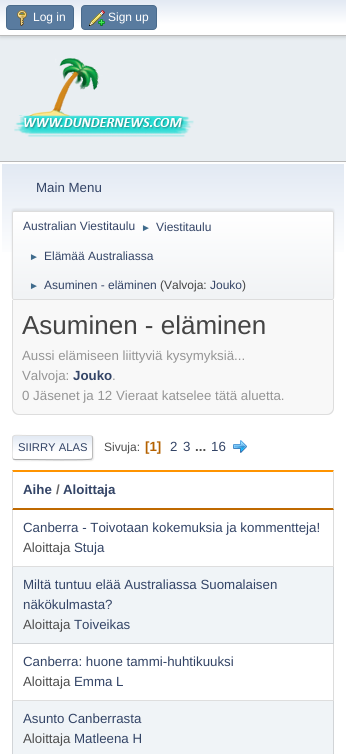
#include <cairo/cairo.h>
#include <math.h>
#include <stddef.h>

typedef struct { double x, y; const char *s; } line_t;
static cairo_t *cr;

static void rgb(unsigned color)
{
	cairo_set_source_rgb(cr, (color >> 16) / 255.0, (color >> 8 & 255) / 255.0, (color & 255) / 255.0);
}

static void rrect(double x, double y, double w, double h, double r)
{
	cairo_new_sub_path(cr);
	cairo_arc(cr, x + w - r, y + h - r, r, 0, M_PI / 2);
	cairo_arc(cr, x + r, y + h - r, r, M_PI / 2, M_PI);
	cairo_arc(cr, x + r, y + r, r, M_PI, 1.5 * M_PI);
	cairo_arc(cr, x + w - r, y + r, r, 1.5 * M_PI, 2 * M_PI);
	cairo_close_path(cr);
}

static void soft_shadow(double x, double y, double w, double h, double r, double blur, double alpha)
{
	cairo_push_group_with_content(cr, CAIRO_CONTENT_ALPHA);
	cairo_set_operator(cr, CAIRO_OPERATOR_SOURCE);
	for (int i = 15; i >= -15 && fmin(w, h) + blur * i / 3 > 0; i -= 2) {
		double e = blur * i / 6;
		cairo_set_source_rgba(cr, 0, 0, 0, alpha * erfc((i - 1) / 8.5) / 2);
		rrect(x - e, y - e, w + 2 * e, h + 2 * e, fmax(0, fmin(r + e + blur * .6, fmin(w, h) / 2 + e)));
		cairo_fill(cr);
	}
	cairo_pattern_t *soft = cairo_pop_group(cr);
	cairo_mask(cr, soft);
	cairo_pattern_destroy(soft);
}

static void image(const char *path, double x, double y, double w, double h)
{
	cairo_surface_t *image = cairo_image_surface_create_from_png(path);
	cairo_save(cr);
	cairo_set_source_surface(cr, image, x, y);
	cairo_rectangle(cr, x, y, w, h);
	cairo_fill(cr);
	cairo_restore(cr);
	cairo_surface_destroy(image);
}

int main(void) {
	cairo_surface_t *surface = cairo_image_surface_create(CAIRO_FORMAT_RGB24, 346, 754);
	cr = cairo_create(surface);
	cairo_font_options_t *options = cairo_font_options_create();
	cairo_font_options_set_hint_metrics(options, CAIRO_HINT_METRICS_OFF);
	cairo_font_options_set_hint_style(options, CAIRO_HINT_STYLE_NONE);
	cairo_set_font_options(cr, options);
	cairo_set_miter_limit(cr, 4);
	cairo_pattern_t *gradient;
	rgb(0xe9eef2);
	cairo_paint(cr);
	rgb(0x000000);
	soft_shadow(0, 1, 346, 36, 0, 2, 0.16);
	gradient = cairo_pattern_create_linear(173, 0, 173, 35);
	cairo_pattern_add_color_stop_rgba(gradient, 0, 0.886, 0.914, 0.953, 1);
	cairo_pattern_add_color_stop_rgba(gradient, 0.7, 1, 1, 1, 1);
	cairo_set_source(cr, gradient);
	cairo_pattern_destroy(gradient);
	cairo_rectangle(cr, 0, 0, 346, 35);
	cairo_fill(cr);
	rgb(0xbbbbbb);
	cairo_rectangle(cr, 0, 35, 346, 1);
	cairo_fill(cr);
	rgb(0x597b9f);
	rrect(6.5, 5.5, 67, 24, 3.5);
	cairo_fill_preserve(cr);
	rgb(0x4a6b8c);
	cairo_set_line_width(cr, 1);
	cairo_stroke(cr);
	image("img/1.png", 17, 10, 10, 16);
	rgb(0x597b9f);
	rrect(81.5, 5.5, 75, 24, 3.5);
	cairo_fill_preserve(cr);
	rgb(0x4a6b8c);
	cairo_stroke(cr);
	image("img/2.png", 89, 10, 16, 16);
	image("img/3.png", 14, 58, 180, 79);
	rgb(0xffffff);
	cairo_rectangle(cr, 0, 162, 346, 592);
	cairo_fill(cr);
	rgb(0xb8b8b8);
	cairo_rectangle(cr, 0, 161, 346, 1);
	cairo_fill(cr);
	gradient = cairo_pattern_create_linear(173, 164, 173, 302);
	cairo_pattern_add_color_stop_rgba(gradient, 0, 0.886, 0.914, 0.953, 1);
	cairo_pattern_add_color_stop_rgba(gradient, 0.7, 1, 1, 1, 1);
	cairo_set_source(cr, gradient);
	cairo_pattern_destroy(gradient);
	cairo_rectangle(cr, 2, 164, 342, 88);
	cairo_fill(cr);
	rgb(0x000000);
	soft_shadow(12, 209, 322, 89, 2, 1, 0.08);
	cairo_save(cr);
	rrect(12, 211, 322, 89, 2);
	cairo_clip(cr);
	gradient = cairo_pattern_create_linear(173, 212, 173, 299);
	cairo_pattern_add_color_stop_rgba(gradient, 0, 1, 1, 1, 1);
	cairo_pattern_add_color_stop_rgba(gradient, 0.95, 0.945, 0.953, 0.961, 1);
	cairo_set_source(cr, gradient);
	cairo_pattern_destroy(gradient);
	cairo_rectangle(cr, 12, 212, 322, 87);
	cairo_fill(cr);
	cairo_restore(cr);
	rrect(12.5, 211.5, 321, 88, 1.5);
	rgb(0xdddddd);
	cairo_stroke(cr);
	rgb(0xf8f8f8);
	cairo_new_path(cr);
	cairo_move_to(cr, 12, 300);
	cairo_line_to(cr, 334, 300);
	cairo_line_to(cr, 334, 408);
	cairo_curve_to(cr, 334, 412, 331, 415, 327, 415);
	cairo_line_to(cr, 19, 415);
	cairo_curve_to(cr, 15, 415, 12, 412, 12, 408);
	cairo_close_path(cr);
	cairo_fill(cr);
	rgb(0xdddddd);
	cairo_set_fill_rule(cr, CAIRO_FILL_RULE_EVEN_ODD);
	cairo_new_path(cr);
	cairo_move_to(cr, 12, 300);
	cairo_line_to(cr, 334, 300);
	cairo_line_to(cr, 334, 408);
	cairo_curve_to(cr, 334, 412, 331, 415, 327, 415);
	cairo_line_to(cr, 19, 415);
	cairo_curve_to(cr, 15, 415, 12, 412, 12, 408);
	cairo_close_path(cr);
	cairo_move_to(cr, 13, 300);
	cairo_line_to(cr, 333, 300);
	cairo_line_to(cr, 333, 408);
	cairo_curve_to(cr, 333, 411, 330, 414, 327, 414);
	cairo_line_to(cr, 19, 414);
	cairo_curve_to(cr, 16, 414, 13, 411, 13, 408);
	cairo_close_path(cr);
	cairo_fill(cr);
	rgb(0xdddddd);
	soft_shadow(13, 436, 81, 25, 3, 0.5, 0.57);
	cairo_save(cr);
	cairo_set_fill_rule(cr, CAIRO_FILL_RULE_WINDING);
	rrect(12, 435, 81, 25, 3);
	cairo_clip(cr);
	gradient = cairo_pattern_create_linear(53, 436, 53, 459);
	cairo_pattern_add_color_stop_rgba(gradient, 0, 0.886, 0.914, 0.953, 1);
	cairo_pattern_add_color_stop_rgba(gradient, 0.7, 1, 1, 1, 1);
	cairo_set_source(cr, gradient);
	cairo_pattern_destroy(gradient);
	cairo_rectangle(cr, 12, 436, 81, 23);
	cairo_fill(cr);
	gradient = cairo_pattern_create_linear(53, 459, 53, 482);
	cairo_pattern_add_color_stop_rgba(gradient, 0, 0.886, 0.914, 0.953, 1);
	cairo_pattern_add_color_stop_rgba(gradient, 0.7, 1, 1, 1, 1);
	cairo_set_source(cr, gradient);
	cairo_pattern_destroy(gradient);
	cairo_rectangle(cr, 12, 459, 81, 1);
	cairo_fill(cr);
	cairo_restore(cr);
	cairo_new_path(cr);
	cairo_move_to(cr, 92, 436);
	cairo_curve_to(cr, 92, 436.5, 92.5, 437.5, 92.5, 438);
	cairo_line_to(cr, 92.5, 457);
	cairo_curve_to(cr, 92.5, 457.5, 92, 458.5, 92, 459);
	rgb(0xbbbbbb);
	cairo_stroke(cr);
	cairo_new_path(cr);
	cairo_move_to(cr, 92, 459);
	cairo_line_to(cr, 91.5, 459);
	cairo_curve_to(cr, 89.5, 460.5, 34.5, 459.5, 27.5, 459.5);
	cairo_line_to(cr, 15, 459.5);
	cairo_line_to(cr, 13, 459);
	rgb(0xaaaaaa);
	cairo_stroke(cr);
	cairo_save(cr);
	cairo_set_fill_rule(cr, CAIRO_FILL_RULE_WINDING);
	cairo_rectangle(cr, 12, 430, 322, 35);
	cairo_clip(cr);
	cairo_new_path(cr);
	cairo_move_to(cr, 13, 459);
	cairo_curve_to(cr, 11.5, 457, 12.5, 450, 12.5, 447.5);
	cairo_curve_to(cr, 12.5, 432.5, 10.5, 435.5, 27.5, 435.5);
	cairo_line_to(cr, 90, 435.5);
	cairo_line_to(cr, 92, 436);
	rgb(0xdddddd);
	cairo_stroke(cr);
	cairo_restore(cr);
	image("img/4.png", 233, 440, 14, 13);
	rgb(0xff9400);
	cairo_set_fill_rule(cr, CAIRO_FILL_RULE_WINDING);
	cairo_new_path(cr);
	cairo_move_to(cr, 12, 470);
	cairo_line_to(cr, 334, 470);
	cairo_line_to(cr, 333, 472);
	cairo_line_to(cr, 13, 472);
	cairo_close_path(cr);
	cairo_fill(cr);
	rgb(0xdddddd);
	cairo_new_path(cr);
	cairo_move_to(cr, 334, 470);
	cairo_line_to(cr, 334, 510);
	cairo_line_to(cr, 333, 508);
	cairo_line_to(cr, 333, 472);
	cairo_close_path(cr);
	cairo_fill(cr);
	rgb(0xbf6900);
	cairo_new_path(cr);
	cairo_move_to(cr, 334, 510);
	cairo_line_to(cr, 12, 510);
	cairo_line_to(cr, 13, 508);
	cairo_line_to(cr, 333, 508);
	cairo_close_path(cr);
	cairo_fill(cr);
	rgb(0xdddddd);
	cairo_new_path(cr);
	cairo_move_to(cr, 12, 510);
	cairo_line_to(cr, 12, 470);
	cairo_line_to(cr, 13, 472);
	cairo_line_to(cr, 13, 508);
	cairo_close_path(cr);
	cairo_fill(cr);
	rgb(0xdcdcdc);
	cairo_new_path(cr);
	cairo_move_to(cr, 334, 510);
	cairo_line_to(cr, 334, 567);
	cairo_line_to(cr, 333, 566);
	cairo_line_to(cr, 333, 510);
	cairo_close_path(cr);
	cairo_fill(cr);
	cairo_set_source_rgba(cr, 0, 0, 0, 0.13);
	cairo_new_path(cr);
	cairo_move_to(cr, 334, 567);
	cairo_line_to(cr, 12, 567);
	cairo_line_to(cr, 13, 566);
	cairo_line_to(cr, 333, 566);
	cairo_close_path(cr);
	cairo_fill(cr);
	cairo_new_path(cr);
	cairo_move_to(cr, 12, 567);
	cairo_line_to(cr, 12, 510);
	cairo_line_to(cr, 13, 510);
	cairo_line_to(cr, 13, 566);
	cairo_close_path(cr);
	cairo_fill(cr);
	rgb(0xf0f4f7);
	cairo_rectangle(cr, 12, 567, 322, 77);
	cairo_fill(cr);
	rgb(0xd1d4d7);
	cairo_new_path(cr);
	cairo_move_to(cr, 334, 567);
	cairo_line_to(cr, 334, 644);
	cairo_line_to(cr, 333, 643);
	cairo_line_to(cr, 333, 567);
	cairo_close_path(cr);
	cairo_fill(cr);
	cairo_set_source_rgba(cr, 0, 0, 0, 0.13);
	cairo_new_path(cr);
	cairo_move_to(cr, 334, 644);
	cairo_line_to(cr, 12, 644);
	cairo_line_to(cr, 13, 643);
	cairo_line_to(cr, 333, 643);
	cairo_close_path(cr);
	cairo_fill(cr);
	cairo_new_path(cr);
	cairo_move_to(cr, 12, 644);
	cairo_line_to(cr, 12, 567);
	cairo_line_to(cr, 13, 567);
	cairo_line_to(cr, 13, 643);
	cairo_close_path(cr);
	cairo_fill(cr);
	rgb(0xdcdcdc);
	cairo_new_path(cr);
	cairo_move_to(cr, 334, 644);
	cairo_line_to(cr, 334, 701);
	cairo_line_to(cr, 333, 700);
	cairo_line_to(cr, 333, 644);
	cairo_close_path(cr);
	cairo_fill(cr);
	cairo_set_source_rgba(cr, 0, 0, 0, 0.13);
	cairo_new_path(cr);
	cairo_move_to(cr, 334, 701);
	cairo_line_to(cr, 12, 701);
	cairo_line_to(cr, 13, 700);
	cairo_line_to(cr, 333, 700);
	cairo_close_path(cr);
	cairo_fill(cr);
	cairo_new_path(cr);
	cairo_move_to(cr, 12, 701);
	cairo_line_to(cr, 12, 644);
	cairo_line_to(cr, 13, 644);
	cairo_line_to(cr, 13, 700);
	cairo_close_path(cr);
	cairo_fill(cr);
	rgb(0xf0f4f7);
	cairo_rectangle(cr, 13, 701, 320, 53);
	cairo_fill(cr);
	rgb(0xd1d4d7);
	cairo_new_path(cr);
	cairo_move_to(cr, 334, 701);
	cairo_line_to(cr, 334, 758);
	cairo_line_to(cr, 333, 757);
	cairo_line_to(cr, 333, 701);
	cairo_close_path(cr);
	cairo_fill(cr);
	cairo_new_path(cr);
	cairo_move_to(cr, 12, 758);
	cairo_line_to(cr, 12, 701);
	cairo_line_to(cr, 13, 701);
	cairo_line_to(cr, 13, 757);
	cairo_close_path(cr);
	cairo_fill(cr);
	cairo_select_font_face(cr, "Liberation Sans", CAIRO_FONT_SLANT_NORMAL, CAIRO_FONT_WEIGHT_NORMAL);
	cairo_set_font_size(cr, 12);
	rgb(0xffffff);
	cairo_move_to(cr, 33, 21);
	cairo_show_text(cr, "Log in");
	cairo_move_to(cr, 108, 21);
	cairo_show_text(cr, "Sign up");
	cairo_set_font_size(cr, 13.3);
	rgb(0x334466);
	cairo_move_to(cr, 36, 192);
	cairo_show_text(cr, "Main Menu");
	cairo_set_font_size(cr, 12);
	cairo_move_to(cr, 23, 230);
	cairo_show_text(cr, "Australian Viestitaulu");
	cairo_set_font_size(cr, 10);
	rgb(0x3f6b8c);
	cairo_move_to(cr, 141, 231);
	cairo_show_text(cr, "►");
	cairo_set_font_size(cr, 12);
	rgb(0x334466);
	cairo_move_to(cr, 156, 231);
	cairo_show_text(cr, "Viestitaulu");
	cairo_set_font_size(cr, 10);
	rgb(0x3f6b8c);
	cairo_move_to(cr, 29, 260);
	cairo_show_text(cr, "►");
	cairo_set_font_size(cr, 12);
	rgb(0x334466);
	cairo_move_to(cr, 44, 260);
	cairo_show_text(cr, "Elämää Australiassa");
	cairo_set_font_size(cr, 10);
	rgb(0x3f6b8c);
	cairo_move_to(cr, 29, 289);
	cairo_show_text(cr, "►");
	cairo_set_font_size(cr, 12);
	rgb(0x334466);
	cairo_move_to(cr, 44, 289);
	cairo_show_text(cr, "Asuminen - eläminen");
	rgb(0x444444);
	cairo_move_to(cr, 160, 289);
	cairo_show_text(cr, "(Valvoja:");
	rgb(0x334466);
	cairo_move_to(cr, 210, 289);
	cairo_show_text(cr, "Jouko");
	rgb(0x444444);
	cairo_move_to(cr, 242, 289);
	cairo_show_text(cr, ")");
	cairo_set_font_size(cr, 26);
	cairo_move_to(cr, 22, 334);
	cairo_show_text(cr, "Asuminen - eläminen");
	cairo_set_font_size(cr, 13.3);
	rgb(0x959595);
	cairo_move_to(cr, 22, 360);
	cairo_show_text(cr, "Aussi elämiseen liittyviä kysymyksiä...");
	cairo_move_to(cr, 22, 380);
	cairo_show_text(cr, "Valvoja:");
	cairo_select_font_face(cr, "Liberation Sans", CAIRO_FONT_SLANT_NORMAL, CAIRO_FONT_WEIGHT_BOLD);
	rgb(0x334466);
	cairo_move_to(cr, 73, 380);
	cairo_show_text(cr, "Jouko");
	cairo_select_font_face(cr, "Liberation Sans", CAIRO_FONT_SLANT_NORMAL, CAIRO_FONT_WEIGHT_NORMAL);
	rgb(0x959595);
	cairo_move_to(cr, 112, 380);
	cairo_show_text(cr, ".");
	cairo_move_to(cr, 22, 400);
	cairo_show_text(cr, "0 Jäsenet ja 12 Vieraat katselee tätä aluetta.");
	cairo_set_font_size(cr, 11.25);
	rgb(0x334466);
	cairo_move_to(cr, 18, 451);
	cairo_show_text(cr, "SIIRRY ALAS");
	cairo_set_font_size(cr, 12);
	rgb(0x4d4d4d);
	cairo_move_to(cr, 104, 451);
	cairo_show_text(cr, "Sivuja:");
	cairo_select_font_face(cr, "Liberation Sans", CAIRO_FONT_SLANT_NORMAL, CAIRO_FONT_WEIGHT_BOLD);
	cairo_set_font_size(cr, 13.3);
	rgb(0xb46100);
	cairo_move_to(cr, 145, 451);
	cairo_show_text(cr, "[1]");
	cairo_select_font_face(cr, "Liberation Sans", CAIRO_FONT_SLANT_NORMAL, CAIRO_FONT_WEIGHT_NORMAL);
	rgb(0x334466);
	cairo_move_to(cr, 170, 451);
	cairo_show_text(cr, "2");
	cairo_move_to(cr, 183, 451);
	cairo_show_text(cr, "3");
	cairo_select_font_face(cr, "Liberation Sans", CAIRO_FONT_SLANT_NORMAL, CAIRO_FONT_WEIGHT_BOLD);
	rgb(0x4d4d4d);
	cairo_move_to(cr, 195, 451);
	cairo_show_text(cr, "...");
	cairo_select_font_face(cr, "Liberation Sans", CAIRO_FONT_SLANT_NORMAL, CAIRO_FONT_WEIGHT_NORMAL);
	rgb(0x334466);
	cairo_move_to(cr, 211, 451);
	cairo_show_text(cr, "16");
	cairo_select_font_face(cr, "Liberation Sans", CAIRO_FONT_SLANT_NORMAL, CAIRO_FONT_WEIGHT_BOLD);
	cairo_move_to(cr, 23, 494);
	cairo_show_text(cr, "Aihe");
	rgb(0x666666);
	cairo_move_to(cr, 56, 494);
	cairo_show_text(cr, "/");
	rgb(0x334466);
	cairo_move_to(cr, 63, 494);
	cairo_show_text(cr, "Aloittaja");
	cairo_select_font_face(cr, "Liberation Sans", CAIRO_FONT_SLANT_NORMAL, CAIRO_FONT_WEIGHT_NORMAL);
	cairo_move_to(cr, 23, 532);
	cairo_show_text(cr, "Canberra - Toivotaan kokemuksia ja kommentteja!");
	rgb(0x4d4d4d);
	cairo_move_to(cr, 23, 552);
	cairo_show_text(cr, "Aloittaja");
	rgb(0x334466);
	{
		static const line_t items[] = {
			{74, 552, "Stuja"},
			{23, 589, "Miltä tuntuu elää Australiassa Suomalaisen"},
			{23, 609, "näkökulmasta?"},
		};
		for (size_t i = 0; i < sizeof items / sizeof *items; i++) {
			cairo_move_to(cr, items[i].x, items[i].y);
			cairo_show_text(cr, items[i].s);
		}
	}
	rgb(0x4d4d4d);
	cairo_move_to(cr, 23, 629);
	cairo_show_text(cr, "Aloittaja");
	rgb(0x334466);
	cairo_move_to(cr, 74, 629);
	cairo_show_text(cr, "Toiveikas");
	cairo_move_to(cr, 23, 666);
	cairo_show_text(cr, "Canberra: huone tammi-huhtikuuksi");
	rgb(0x4d4d4d);
	cairo_move_to(cr, 23, 686);
	cairo_show_text(cr, "Aloittaja");
	rgb(0x334466);
	cairo_move_to(cr, 74, 686);
	cairo_show_text(cr, "Emma L");
	cairo_move_to(cr, 23, 723);
	cairo_show_text(cr, "Asunto Canberrasta");
	rgb(0x4d4d4d);
	cairo_move_to(cr, 23, 743);
	cairo_show_text(cr, "Aloittaja");
	rgb(0x334466);
	cairo_move_to(cr, 74, 743);
	cairo_show_text(cr, "Matleena H");
	cairo_surface_write_to_png(surface, "page.png");
	cairo_font_options_destroy(options);
	cairo_destroy(cr);
	cairo_surface_destroy(surface);
	return 0;
}
